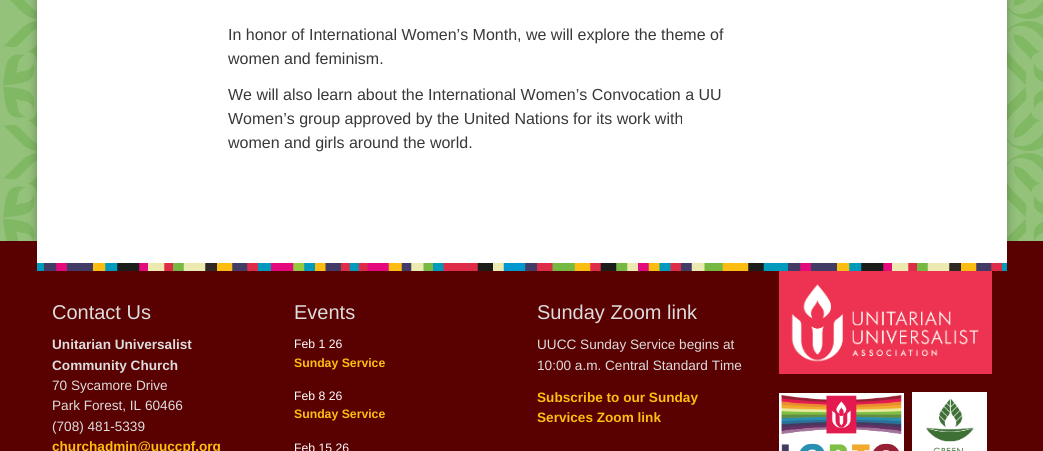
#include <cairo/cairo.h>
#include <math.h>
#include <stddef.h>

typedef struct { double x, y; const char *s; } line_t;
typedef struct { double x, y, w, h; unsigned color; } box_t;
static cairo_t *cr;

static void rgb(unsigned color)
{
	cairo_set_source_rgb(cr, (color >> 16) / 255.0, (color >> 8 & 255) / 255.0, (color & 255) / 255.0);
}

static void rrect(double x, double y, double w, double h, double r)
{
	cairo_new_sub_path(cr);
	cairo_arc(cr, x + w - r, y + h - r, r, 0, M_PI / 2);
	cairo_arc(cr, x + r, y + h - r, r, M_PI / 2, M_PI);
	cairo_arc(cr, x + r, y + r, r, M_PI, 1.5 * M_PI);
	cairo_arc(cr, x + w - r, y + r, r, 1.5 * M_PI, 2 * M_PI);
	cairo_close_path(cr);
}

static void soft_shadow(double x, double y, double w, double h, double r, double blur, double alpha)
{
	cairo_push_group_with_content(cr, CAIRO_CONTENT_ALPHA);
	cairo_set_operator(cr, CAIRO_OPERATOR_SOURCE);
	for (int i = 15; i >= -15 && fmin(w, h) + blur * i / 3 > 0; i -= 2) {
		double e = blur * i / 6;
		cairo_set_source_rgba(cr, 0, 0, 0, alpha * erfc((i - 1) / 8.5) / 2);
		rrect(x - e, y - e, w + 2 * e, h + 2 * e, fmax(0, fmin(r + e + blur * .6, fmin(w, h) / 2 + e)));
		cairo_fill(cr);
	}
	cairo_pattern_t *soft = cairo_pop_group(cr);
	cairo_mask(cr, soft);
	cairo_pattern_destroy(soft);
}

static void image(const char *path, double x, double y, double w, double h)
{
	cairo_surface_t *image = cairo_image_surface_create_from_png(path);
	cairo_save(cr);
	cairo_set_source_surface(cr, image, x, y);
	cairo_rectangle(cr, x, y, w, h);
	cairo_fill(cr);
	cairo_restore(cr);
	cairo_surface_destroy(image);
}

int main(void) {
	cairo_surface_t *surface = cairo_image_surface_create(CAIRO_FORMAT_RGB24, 1043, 451);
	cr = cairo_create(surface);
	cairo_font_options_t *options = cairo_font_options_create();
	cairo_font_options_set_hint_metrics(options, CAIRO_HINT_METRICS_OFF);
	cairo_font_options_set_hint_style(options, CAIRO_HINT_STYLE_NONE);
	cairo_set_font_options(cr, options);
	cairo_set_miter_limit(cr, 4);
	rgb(0x94c27b);
	cairo_paint(cr);
	image("img/1.png", 3, 0, 1040, 241);
	rgb(0x000000);
	soft_shadow(37, -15, 970, 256, 0, 5, 0.3);
	{
		static const box_t items[] = {
			{37, 0, 970, 241, 0xffffff},
			{0, 241, 1043, 210, 0x590000},
			{37, 241, 970, 22, 0xffffff},
		};
		for (size_t i = 0; i < sizeof items / sizeof *items; i++) {
			rgb(items[i].color);
			cairo_rectangle(cr, items[i].x, items[i].y, items[i].w, items[i].h);
			cairo_fill(cr);
		}
	}
	image("img/2.png", 37, 263, 970, 8);
	image("img/3.png", 779, 271, 213, 103);
	image("img/4.png", 779, 393, 125, 58);
	image("img/5.png", 912, 392, 75, 59);
	cairo_select_font_face(cr, "Liberation Sans", CAIRO_FONT_SLANT_NORMAL, CAIRO_FONT_WEIGHT_NORMAL);
	cairo_set_font_size(cr, 16);
	rgb(0x373839);
	{
		static const line_t items[] = {
			{228, 40, "In honor of International Women’s Month, we will explore the theme of"},
			{228, 64, "women and feminism."},
			{228, 100, "We will also learn about the International Women’s Convocation a UU"},
			{228, 124, "Women’s group approved by the United Nations for its work with"},
			{228, 148, "women and girls around the world."},
		};
		for (size_t i = 0; i < sizeof items / sizeof *items; i++) {
			cairo_move_to(cr, items[i].x, items[i].y);
			cairo_show_text(cr, items[i].s);
		}
	}
	cairo_set_font_size(cr, 20);
	rgb(0xdddddd);
	cairo_move_to(cr, 52, 319);
	cairo_show_text(cr, "Contact Us");
	cairo_select_font_face(cr, "Liberation Sans", CAIRO_FONT_SLANT_NORMAL, CAIRO_FONT_WEIGHT_BOLD);
	cairo_set_font_size(cr, 13.6);
	cairo_move_to(cr, 52, 349);
	cairo_show_text(cr, "Unitarian Universalist");
	cairo_move_to(cr, 52, 370);
	cairo_show_text(cr, "Community Church");
	cairo_select_font_face(cr, "Liberation Sans", CAIRO_FONT_SLANT_NORMAL, CAIRO_FONT_WEIGHT_NORMAL);
	{
		static const line_t items[] = {
			{52, 390, "70 Sycamore Drive"},
			{52, 410, "Park Forest, IL 60466"},
			{52, 431, "(708) 481-5339"},
		};
		for (size_t i = 0; i < sizeof items / sizeof *items; i++) {
			cairo_move_to(cr, items[i].x, items[i].y);
			cairo_show_text(cr, items[i].s);
		}
	}
	cairo_select_font_face(cr, "Liberation Sans", CAIRO_FONT_SLANT_NORMAL, CAIRO_FONT_WEIGHT_BOLD);
	rgb(0xfebe10);
	cairo_move_to(cr, 52, 451);
	cairo_show_text(cr, "churchadmin@uuccpf.org");
	cairo_select_font_face(cr, "Liberation Sans", CAIRO_FONT_SLANT_NORMAL, CAIRO_FONT_WEIGHT_NORMAL);
	cairo_set_font_size(cr, 20);
	rgb(0xdddddd);
	cairo_move_to(cr, 294, 319);
	cairo_show_text(cr, "Events");
	cairo_set_font_size(cr, 12.25);
	rgb(0xffffff);
	cairo_move_to(cr, 294, 348);
	cairo_show_text(cr, "Feb 1 26");
	cairo_select_font_face(cr, "Liberation Sans", CAIRO_FONT_SLANT_NORMAL, CAIRO_FONT_WEIGHT_BOLD);
	rgb(0xfebe10);
	cairo_move_to(cr, 294, 367);
	cairo_show_text(cr, "Sunday Service");
	cairo_select_font_face(cr, "Liberation Sans", CAIRO_FONT_SLANT_NORMAL, CAIRO_FONT_WEIGHT_NORMAL);
	rgb(0xffffff);
	cairo_move_to(cr, 294, 400);
	cairo_show_text(cr, "Feb 8 26");
	cairo_select_font_face(cr, "Liberation Sans", CAIRO_FONT_SLANT_NORMAL, CAIRO_FONT_WEIGHT_BOLD);
	rgb(0xfebe10);
	cairo_move_to(cr, 294, 418);
	cairo_show_text(cr, "Sunday Service");
	cairo_select_font_face(cr, "Liberation Sans", CAIRO_FONT_SLANT_NORMAL, CAIRO_FONT_WEIGHT_NORMAL);
	rgb(0xffffff);
	cairo_move_to(cr, 294, 452);
	cairo_show_text(cr, "Feb 15 26");
	cairo_set_font_size(cr, 20);
	rgb(0xdddddd);
	cairo_move_to(cr, 537, 319);
	cairo_show_text(cr, "Sunday Zoom link");
	cairo_set_font_size(cr, 13.6);
	cairo_move_to(cr, 537, 349);
	cairo_show_text(cr, "UUCC Sunday Service begins at");
	cairo_move_to(cr, 537, 370);
	cairo_show_text(cr, "10:00 a.m. Central Standard Time");
	cairo_select_font_face(cr, "Liberation Sans", CAIRO_FONT_SLANT_NORMAL, CAIRO_FONT_WEIGHT_BOLD);
	rgb(0xfebe10);
	cairo_move_to(cr, 537, 402);
	cairo_show_text(cr, "Subscribe to our Sunday");
	cairo_move_to(cr, 537, 422);
	cairo_show_text(cr, "Services Zoom link");
	cairo_surface_write_to_png(surface, "page.png");
	cairo_font_options_destroy(options);
	cairo_destroy(cr);
	cairo_surface_destroy(surface);
	return 0;
}
